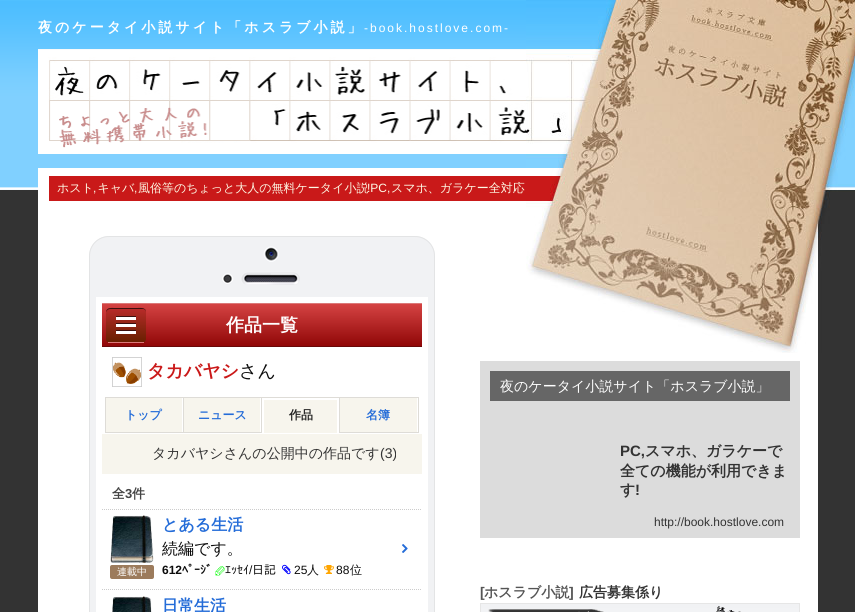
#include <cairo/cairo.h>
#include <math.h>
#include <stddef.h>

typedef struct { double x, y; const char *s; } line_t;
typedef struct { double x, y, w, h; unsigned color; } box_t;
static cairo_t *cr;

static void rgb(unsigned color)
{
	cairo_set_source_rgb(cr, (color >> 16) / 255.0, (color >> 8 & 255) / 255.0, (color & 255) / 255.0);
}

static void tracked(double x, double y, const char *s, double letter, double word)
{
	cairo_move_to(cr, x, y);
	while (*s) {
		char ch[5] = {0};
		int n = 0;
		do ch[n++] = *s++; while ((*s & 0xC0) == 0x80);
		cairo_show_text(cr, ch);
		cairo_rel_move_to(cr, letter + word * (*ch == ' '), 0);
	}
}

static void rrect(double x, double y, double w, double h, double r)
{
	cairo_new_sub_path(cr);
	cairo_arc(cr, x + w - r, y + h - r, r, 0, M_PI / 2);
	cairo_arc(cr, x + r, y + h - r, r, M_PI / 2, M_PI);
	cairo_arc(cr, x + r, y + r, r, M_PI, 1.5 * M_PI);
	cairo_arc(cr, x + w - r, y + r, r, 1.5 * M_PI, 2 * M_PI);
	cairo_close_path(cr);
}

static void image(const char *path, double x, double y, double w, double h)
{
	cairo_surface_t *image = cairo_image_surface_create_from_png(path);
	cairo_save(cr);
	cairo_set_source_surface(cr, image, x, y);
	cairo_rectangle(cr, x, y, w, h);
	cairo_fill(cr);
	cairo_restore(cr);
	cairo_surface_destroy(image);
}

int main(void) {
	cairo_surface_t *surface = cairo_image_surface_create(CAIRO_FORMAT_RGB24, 855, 612);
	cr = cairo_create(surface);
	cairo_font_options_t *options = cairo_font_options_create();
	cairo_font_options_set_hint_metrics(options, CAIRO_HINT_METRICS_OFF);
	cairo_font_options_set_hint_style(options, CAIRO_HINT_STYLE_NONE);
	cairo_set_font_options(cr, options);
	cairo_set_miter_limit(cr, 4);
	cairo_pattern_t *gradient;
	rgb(0x333333);
	cairo_paint(cr);
	image("img/1.png", 0, 0, 526, 190);
	image("img/2.png", 38, 49, 488, 105);
	rgb(0xffffff);
	cairo_rectangle(cr, 38, 168, 780, 444);
	cairo_fill(cr);
	image("img/3.png", 526, 0, 329, 353);
	rgb(0xc91919);
	cairo_rectangle(cr, 49, 176, 477, 25);
	cairo_fill(cr);
	rgb(0xf1f2f4);
	rrect(89, 236, 346, 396, 20);
	cairo_fill(cr);
	image("img/4.png", 222, 246, 78, 39);
	rrect(89.5, 236.5, 345, 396, 19.5);
	rgb(0xe3e4e5);
	cairo_set_line_width(cr, 1);
	cairo_stroke(cr);
	rgb(0xffffff);
	cairo_rectangle(cr, 99, 300, 326, 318);
	cairo_fill_preserve(cr);
	cairo_set_line_width(cr, 6);
	cairo_stroke(cr);
	gradient = cairo_pattern_create_linear(262, 304, 262, 346);
	cairo_pattern_add_color_stop_rgba(gradient, 0, 0.835, 0.263, 0.263, 1);
	cairo_pattern_add_color_stop_rgba(gradient, 1, 0.565, 0.027, 0.027, 1);
	cairo_set_source(cr, gradient);
	cairo_pattern_destroy(gradient);
	cairo_rectangle(cr, 102, 304, 320, 42);
	cairo_fill(cr);
	rgb(0xdb7979);
	cairo_rectangle(cr, 102, 303, 320, 1);
	cairo_fill(cr);
	rgb(0x6a0808);
	cairo_rectangle(cr, 102, 346, 320, 1);
	cairo_fill(cr);
	cairo_save(cr);
	rrect(106, 308, 40, 35, 4);
	cairo_clip(cr);
	gradient = cairo_pattern_create_linear(126, 308, 126, 342);
	cairo_pattern_add_color_stop_rgba(gradient, 0, 0.725, 0.169, 0.165, 1);
	cairo_pattern_add_color_stop_rgba(gradient, 1, 0.408, 0.125, 0, 1);
	cairo_set_source(cr, gradient);
	cairo_pattern_destroy(gradient);
	cairo_new_path(cr);
	cairo_move_to(cr, 110, 308);
	cairo_line_to(cr, 142, 308);
	cairo_curve_to(cr, 144, 308, 146, 310, 146, 312);
	cairo_line_to(cr, 146, 342);
	cairo_line_to(cr, 106, 342);
	cairo_line_to(cr, 106, 312);
	cairo_curve_to(cr, 106, 310, 108, 308, 110, 308);
	cairo_close_path(cr);
	cairo_fill(cr);
	cairo_restore(cr);
	rgb(0x3c100f);
	cairo_set_fill_rule(cr, CAIRO_FILL_RULE_EVEN_ODD);
	cairo_new_path(cr);
	cairo_move_to(cr, 110, 309);
	cairo_line_to(cr, 143, 309);
	cairo_curve_to(cr, 145, 309, 146, 311, 146, 312);
	cairo_curve_to(cr, 146, 307, 140, 308, 137, 308);
	cairo_line_to(cr, 115, 308);
	cairo_curve_to(cr, 111, 308, 106, 307, 106, 313);
	cairo_curve_to(cr, 106, 311, 108, 309, 110, 309);
	cairo_close_path(cr);
	cairo_move_to(cr, 106, 340);
	cairo_line_to(cr, 106, 336);
	cairo_close_path(cr);
	cairo_fill(cr);
	{
		static const box_t items[] = {
			{108, 342, 36, 1, 0xdb7979},
			{116, 324, 20, 3, 0xffffff},
			{116, 323, 20, 1, 0x3c100f},
			{116, 317, 20, 3, 0xffffff},
			{116, 316, 20, 1, 0x3c100f},
			{116, 331, 20, 3, 0xffffff},
			{116, 330, 20, 1, 0x3c100f},
		};
		for (size_t i = 0; i < sizeof items / sizeof *items; i++) {
			rgb(items[i].color);
			cairo_rectangle(cr, items[i].x, items[i].y, items[i].w, items[i].h);
			cairo_fill(cr);
		}
	}
	image("img/5.png", 112, 357, 30, 30);
	cairo_rectangle(cr, 105.5, 397.5, 78, 35);
	rgb(0xdedcd7);
	cairo_set_line_width(cr, 1);
	cairo_stroke(cr);
	{
		static const box_t items[] = {
			{106, 398, 76, 34, 0xf7f5ed},
			{184, 397, 235, 1, 0xdedcd7},
			{261, 397, 1, 36, 0xdedcd7},
			{184, 432, 78, 1, 0xdedcd7},
			{184, 398, 76, 34, 0xf7f5ed},
			{339, 397, 1, 36, 0xdedcd7},
			{264, 400, 73, 33, 0xf7f5ed},
			{418, 397, 1, 36, 0xdedcd7},
			{340, 432, 79, 1, 0xdedcd7},
			{340, 398, 77, 34, 0xf7f5ed},
			{102, 434, 320, 40, 0xf7f5ed},
		};
		for (size_t i = 0; i < sizeof items / sizeof *items; i++) {
			rgb(items[i].color);
			cairo_rectangle(cr, items[i].x, items[i].y, items[i].w, items[i].h);
			cairo_fill(cr);
		}
	}
	cairo_new_path(cr);
	cairo_move_to(cr, 102, 509.5);
	cairo_line_to(cr, 422, 509.5);
	rgb(0xcccccc);
	cairo_set_dash(cr, (double[]){1, 1}, 2, 0);
	cairo_stroke(cr);
	image("img/6.png", 110, 515, 44, 48);
	cairo_new_path(cr);
	cairo_move_to(cr, 102, 589.5);
	cairo_line_to(cr, 422, 589.5);
	cairo_stroke(cr);
	image("img/7.png", 402, 544, 6, 9);
	rgb(0x9c7b5c);
	rrect(110, 565, 44, 14, 2);
	cairo_fill(cr);
	image("img/8.png", 215, 566, 10, 10);
	image("img/9.png", 282, 564, 9, 11);
	image("img/10.png", 324, 565, 10, 9);
	image("img/11.png", 112, 596, 40, 16);
	rgb(0xdcdcdc);
	cairo_rectangle(cr, 480, 361, 320, 177);
	cairo_fill(cr);
	rgb(0x666666);
	cairo_rectangle(cr, 490, 371, 300, 30);
	cairo_fill(cr);
	image("img/12.png", 480, 603, 320, 9);
	cairo_select_font_face(cr, "WenQuanYi Zen Hei", CAIRO_FONT_SLANT_NORMAL, CAIRO_FONT_WEIGHT_BOLD);
	cairo_set_font_size(cr, 14);
	rgb(0xffffff);
	tracked(38, 32, "夜のケータイ小説サイト「ホスラブ小説」", 3, 0);
	cairo_select_font_face(cr, "Liberation Sans", CAIRO_FONT_SLANT_NORMAL, CAIRO_FONT_WEIGHT_NORMAL);
	cairo_set_font_size(cr, 12);
	tracked(364, 32, "-book.hostlove.com-", 2, 0);
	cairo_select_font_face(cr, "WenQuanYi Zen Hei Medium", CAIRO_FONT_SLANT_NORMAL, CAIRO_FONT_WEIGHT_NORMAL);
	rgb(0xfef9e5);
	cairo_move_to(cr, 57, 192);
	cairo_show_text(cr, "ホスト キャバ 風俗等のちょっと大人の無料ケータイ小説");
	cairo_select_font_face(cr, "Liberation Sans", CAIRO_FONT_SLANT_NORMAL, CAIRO_FONT_WEIGHT_NORMAL);
	cairo_move_to(cr, 367, 192);
	cairo_show_text(cr, "!PC,");
	cairo_select_font_face(cr, "WenQuanYi Zen Hei Medium", CAIRO_FONT_SLANT_NORMAL, CAIRO_FONT_WEIGHT_NORMAL);
	cairo_move_to(cr, 391, 192);
	cairo_show_text(cr, "スマホ、ガラケー全対応");
	cairo_select_font_face(cr, "Liberation Sans", CAIRO_FONT_SLANT_NORMAL, CAIRO_FONT_WEIGHT_NORMAL);
	cairo_move_to(cr, 93, 192);
	cairo_show_text(cr, ",");
	cairo_move_to(cr, 134, 192);
	cairo_show_text(cr, ",");
	cairo_select_font_face(cr, "WenQuanYi Zen Hei", CAIRO_FONT_SLANT_NORMAL, CAIRO_FONT_WEIGHT_BOLD);
	cairo_set_font_size(cr, 18);
	rgb(0xffffff);
	cairo_move_to(cr, 226, 331);
	cairo_show_text(cr, "作品一覧");
	rgb(0xca1919);
	cairo_move_to(cr, 147, 377);
	cairo_show_text(cr, "タカバヤシ");
	cairo_select_font_face(cr, "WenQuanYi Zen Hei Medium", CAIRO_FONT_SLANT_NORMAL, CAIRO_FONT_WEIGHT_NORMAL);
	rgb(0x0c0c0c);
	cairo_move_to(cr, 239, 377);
	cairo_show_text(cr, "さん");
	cairo_select_font_face(cr, "WenQuanYi Zen Hei", CAIRO_FONT_SLANT_NORMAL, CAIRO_FONT_WEIGHT_BOLD);
	cairo_set_font_size(cr, 12);
	rgb(0x246cd8);
	cairo_move_to(cr, 125, 419);
	cairo_show_text(cr, "トップ");
	cairo_move_to(cr, 198, 419);
	cairo_show_text(cr, "ニュース");
	rgb(0x222222);
	cairo_move_to(cr, 289, 419);
	cairo_show_text(cr, "作品");
	rgb(0x246cd8);
	cairo_move_to(cr, 366, 419);
	cairo_show_text(cr, "名簿");
	cairo_select_font_face(cr, "WenQuanYi Zen Hei Medium", CAIRO_FONT_SLANT_NORMAL, CAIRO_FONT_WEIGHT_NORMAL);
	cairo_set_font_size(cr, 14);
	rgb(0x333333);
	cairo_move_to(cr, 152, 458);
	cairo_show_text(cr, "タカバヤシさんの公開中の作品です");
	cairo_select_font_face(cr, "Liberation Sans", CAIRO_FONT_SLANT_NORMAL, CAIRO_FONT_WEIGHT_NORMAL);
	cairo_move_to(cr, 380, 458);
	cairo_show_text(cr, "(3)");
	cairo_select_font_face(cr, "WenQuanYi Zen Hei", CAIRO_FONT_SLANT_NORMAL, CAIRO_FONT_WEIGHT_BOLD);
	cairo_set_font_size(cr, 13);
	rgb(0x444444);
	cairo_move_to(cr, 112, 498);
	cairo_show_text(cr, "全");
	cairo_select_font_face(cr, "Liberation Sans", CAIRO_FONT_SLANT_NORMAL, CAIRO_FONT_WEIGHT_BOLD);
	cairo_move_to(cr, 125, 498);
	cairo_show_text(cr, "3");
	cairo_select_font_face(cr, "WenQuanYi Zen Hei", CAIRO_FONT_SLANT_NORMAL, CAIRO_FONT_WEIGHT_BOLD);
	cairo_move_to(cr, 132, 498);
	cairo_show_text(cr, "件");
	cairo_set_font_size(cr, 16);
	rgb(0x246cd8);
	cairo_move_to(cr, 162, 530);
	cairo_show_text(cr, "とある生活");
	cairo_save(cr);
	cairo_set_fill_rule(cr, CAIRO_FILL_RULE_WINDING);
	cairo_rectangle(cr, 162, 534, 240, 27);
	cairo_clip(cr);
	cairo_select_font_face(cr, "WenQuanYi Zen Hei Medium", CAIRO_FONT_SLANT_NORMAL, CAIRO_FONT_WEIGHT_NORMAL);
	rgb(0x0c0c0c);
	cairo_move_to(cr, 162, 554);
	cairo_show_text(cr, "続編です。");
	cairo_restore(cr);
	cairo_select_font_face(cr, "WenQuanYi Zen Hei Medium", CAIRO_FONT_SLANT_NORMAL, CAIRO_FONT_WEIGHT_NORMAL);
	cairo_set_font_size(cr, 10);
	rgb(0xffffff);
	cairo_move_to(cr, 117, 575);
	cairo_show_text(cr, "連載中");
	cairo_select_font_face(cr, "Liberation Sans", CAIRO_FONT_SLANT_NORMAL, CAIRO_FONT_WEIGHT_BOLD);
	cairo_set_font_size(cr, 12);
	rgb(0x0c0c0c);
	cairo_move_to(cr, 162, 574);
	cairo_show_text(cr, "612");
	cairo_select_font_face(cr, "IPAGothic", CAIRO_FONT_SLANT_NORMAL, CAIRO_FONT_WEIGHT_BOLD);
	cairo_move_to(cr, 182, 574);
	cairo_show_text(cr, "ﾍﾟｰｼﾞ");
	cairo_select_font_face(cr, "IPAGothic", CAIRO_FONT_SLANT_NORMAL, CAIRO_FONT_WEIGHT_NORMAL);
	cairo_move_to(cr, 225, 574);
	cairo_show_text(cr, "ｴｯｾｲ");
	cairo_select_font_face(cr, "Liberation Sans", CAIRO_FONT_SLANT_NORMAL, CAIRO_FONT_WEIGHT_NORMAL);
	cairo_move_to(cr, 249, 574);
	cairo_show_text(cr, "/");
	cairo_select_font_face(cr, "IPAGothic", CAIRO_FONT_SLANT_NORMAL, CAIRO_FONT_WEIGHT_NORMAL);
	cairo_move_to(cr, 252, 574);
	cairo_show_text(cr, "日記");
	cairo_select_font_face(cr, "Liberation Sans", CAIRO_FONT_SLANT_NORMAL, CAIRO_FONT_WEIGHT_NORMAL);
	cairo_move_to(cr, 294, 574);
	cairo_show_text(cr, "25");
	cairo_select_font_face(cr, "WenQuanYi Zen Hei Medium", CAIRO_FONT_SLANT_NORMAL, CAIRO_FONT_WEIGHT_NORMAL);
	cairo_move_to(cr, 307, 574);
	cairo_show_text(cr, "人");
	cairo_select_font_face(cr, "Liberation Sans", CAIRO_FONT_SLANT_NORMAL, CAIRO_FONT_WEIGHT_NORMAL);
	cairo_move_to(cr, 336, 574);
	cairo_show_text(cr, "88");
	cairo_select_font_face(cr, "WenQuanYi Zen Hei Medium", CAIRO_FONT_SLANT_NORMAL, CAIRO_FONT_WEIGHT_NORMAL);
	cairo_move_to(cr, 350, 574);
	cairo_show_text(cr, "位");
	cairo_select_font_face(cr, "WenQuanYi Zen Hei", CAIRO_FONT_SLANT_NORMAL, CAIRO_FONT_WEIGHT_BOLD);
	cairo_set_font_size(cr, 16);
	rgb(0x246cd8);
	cairo_move_to(cr, 162, 611);
	cairo_show_text(cr, "日常生活");
	cairo_select_font_face(cr, "WenQuanYi Zen Hei Medium", CAIRO_FONT_SLANT_NORMAL, CAIRO_FONT_WEIGHT_NORMAL);
	cairo_set_font_size(cr, 14);
	rgb(0xffffff);
	cairo_move_to(cr, 500, 391);
	cairo_show_text(cr, "夜のケータイ小説サイト「ホスラブ小説」");
	cairo_select_font_face(cr, "Liberation Sans", CAIRO_FONT_SLANT_NORMAL, CAIRO_FONT_WEIGHT_BOLD);
	cairo_set_font_size(cr, 15);
	rgb(0x333333);
	cairo_move_to(cr, 620, 456);
	cairo_show_text(cr, "PC,");
	cairo_select_font_face(cr, "WenQuanYi Zen Hei", CAIRO_FONT_SLANT_NORMAL, CAIRO_FONT_WEIGHT_BOLD);
	{
		static const line_t items[] = {
			{645, 456, "スマホ、ガラケーで"},
			{620, 476, "全ての機能が利用できま"},
			{620, 495, "す"},
		};
		for (size_t i = 0; i < sizeof items / sizeof *items; i++) {
			cairo_move_to(cr, items[i].x, items[i].y);
			cairo_show_text(cr, items[i].s);
		}
	}
	cairo_select_font_face(cr, "Liberation Sans", CAIRO_FONT_SLANT_NORMAL, CAIRO_FONT_WEIGHT_BOLD);
	cairo_move_to(cr, 635, 495);
	cairo_show_text(cr, "!");
	cairo_select_font_face(cr, "Liberation Sans", CAIRO_FONT_SLANT_NORMAL, CAIRO_FONT_WEIGHT_NORMAL);
	cairo_set_font_size(cr, 12);
	cairo_move_to(cr, 654, 526);
	cairo_show_text(cr, "http://book.hostlove.com");
	cairo_select_font_face(cr, "Liberation Sans", CAIRO_FONT_SLANT_NORMAL, CAIRO_FONT_WEIGHT_BOLD);
	cairo_set_font_size(cr, 14);
	rgb(0x555555);
	cairo_move_to(cr, 480, 597);
	cairo_show_text(cr, "[");
	cairo_select_font_face(cr, "WenQuanYi Zen Hei", CAIRO_FONT_SLANT_NORMAL, CAIRO_FONT_WEIGHT_BOLD);
	cairo_move_to(cr, 484, 597);
	cairo_show_text(cr, "ホスラブ小説");
	cairo_select_font_face(cr, "Liberation Sans", CAIRO_FONT_SLANT_NORMAL, CAIRO_FONT_WEIGHT_BOLD);
	cairo_move_to(cr, 569, 597);
	cairo_show_text(cr, "]");
	cairo_select_font_face(cr, "WenQuanYi Zen Hei", CAIRO_FONT_SLANT_NORMAL, CAIRO_FONT_WEIGHT_BOLD);
	rgb(0x333333);
	cairo_move_to(cr, 579, 597);
	cairo_show_text(cr, "広告募集係り");
	cairo_surface_write_to_png(surface, "page.png");
	cairo_font_options_destroy(options);
	cairo_destroy(cr);
	cairo_surface_destroy(surface);
	return 0;
}
